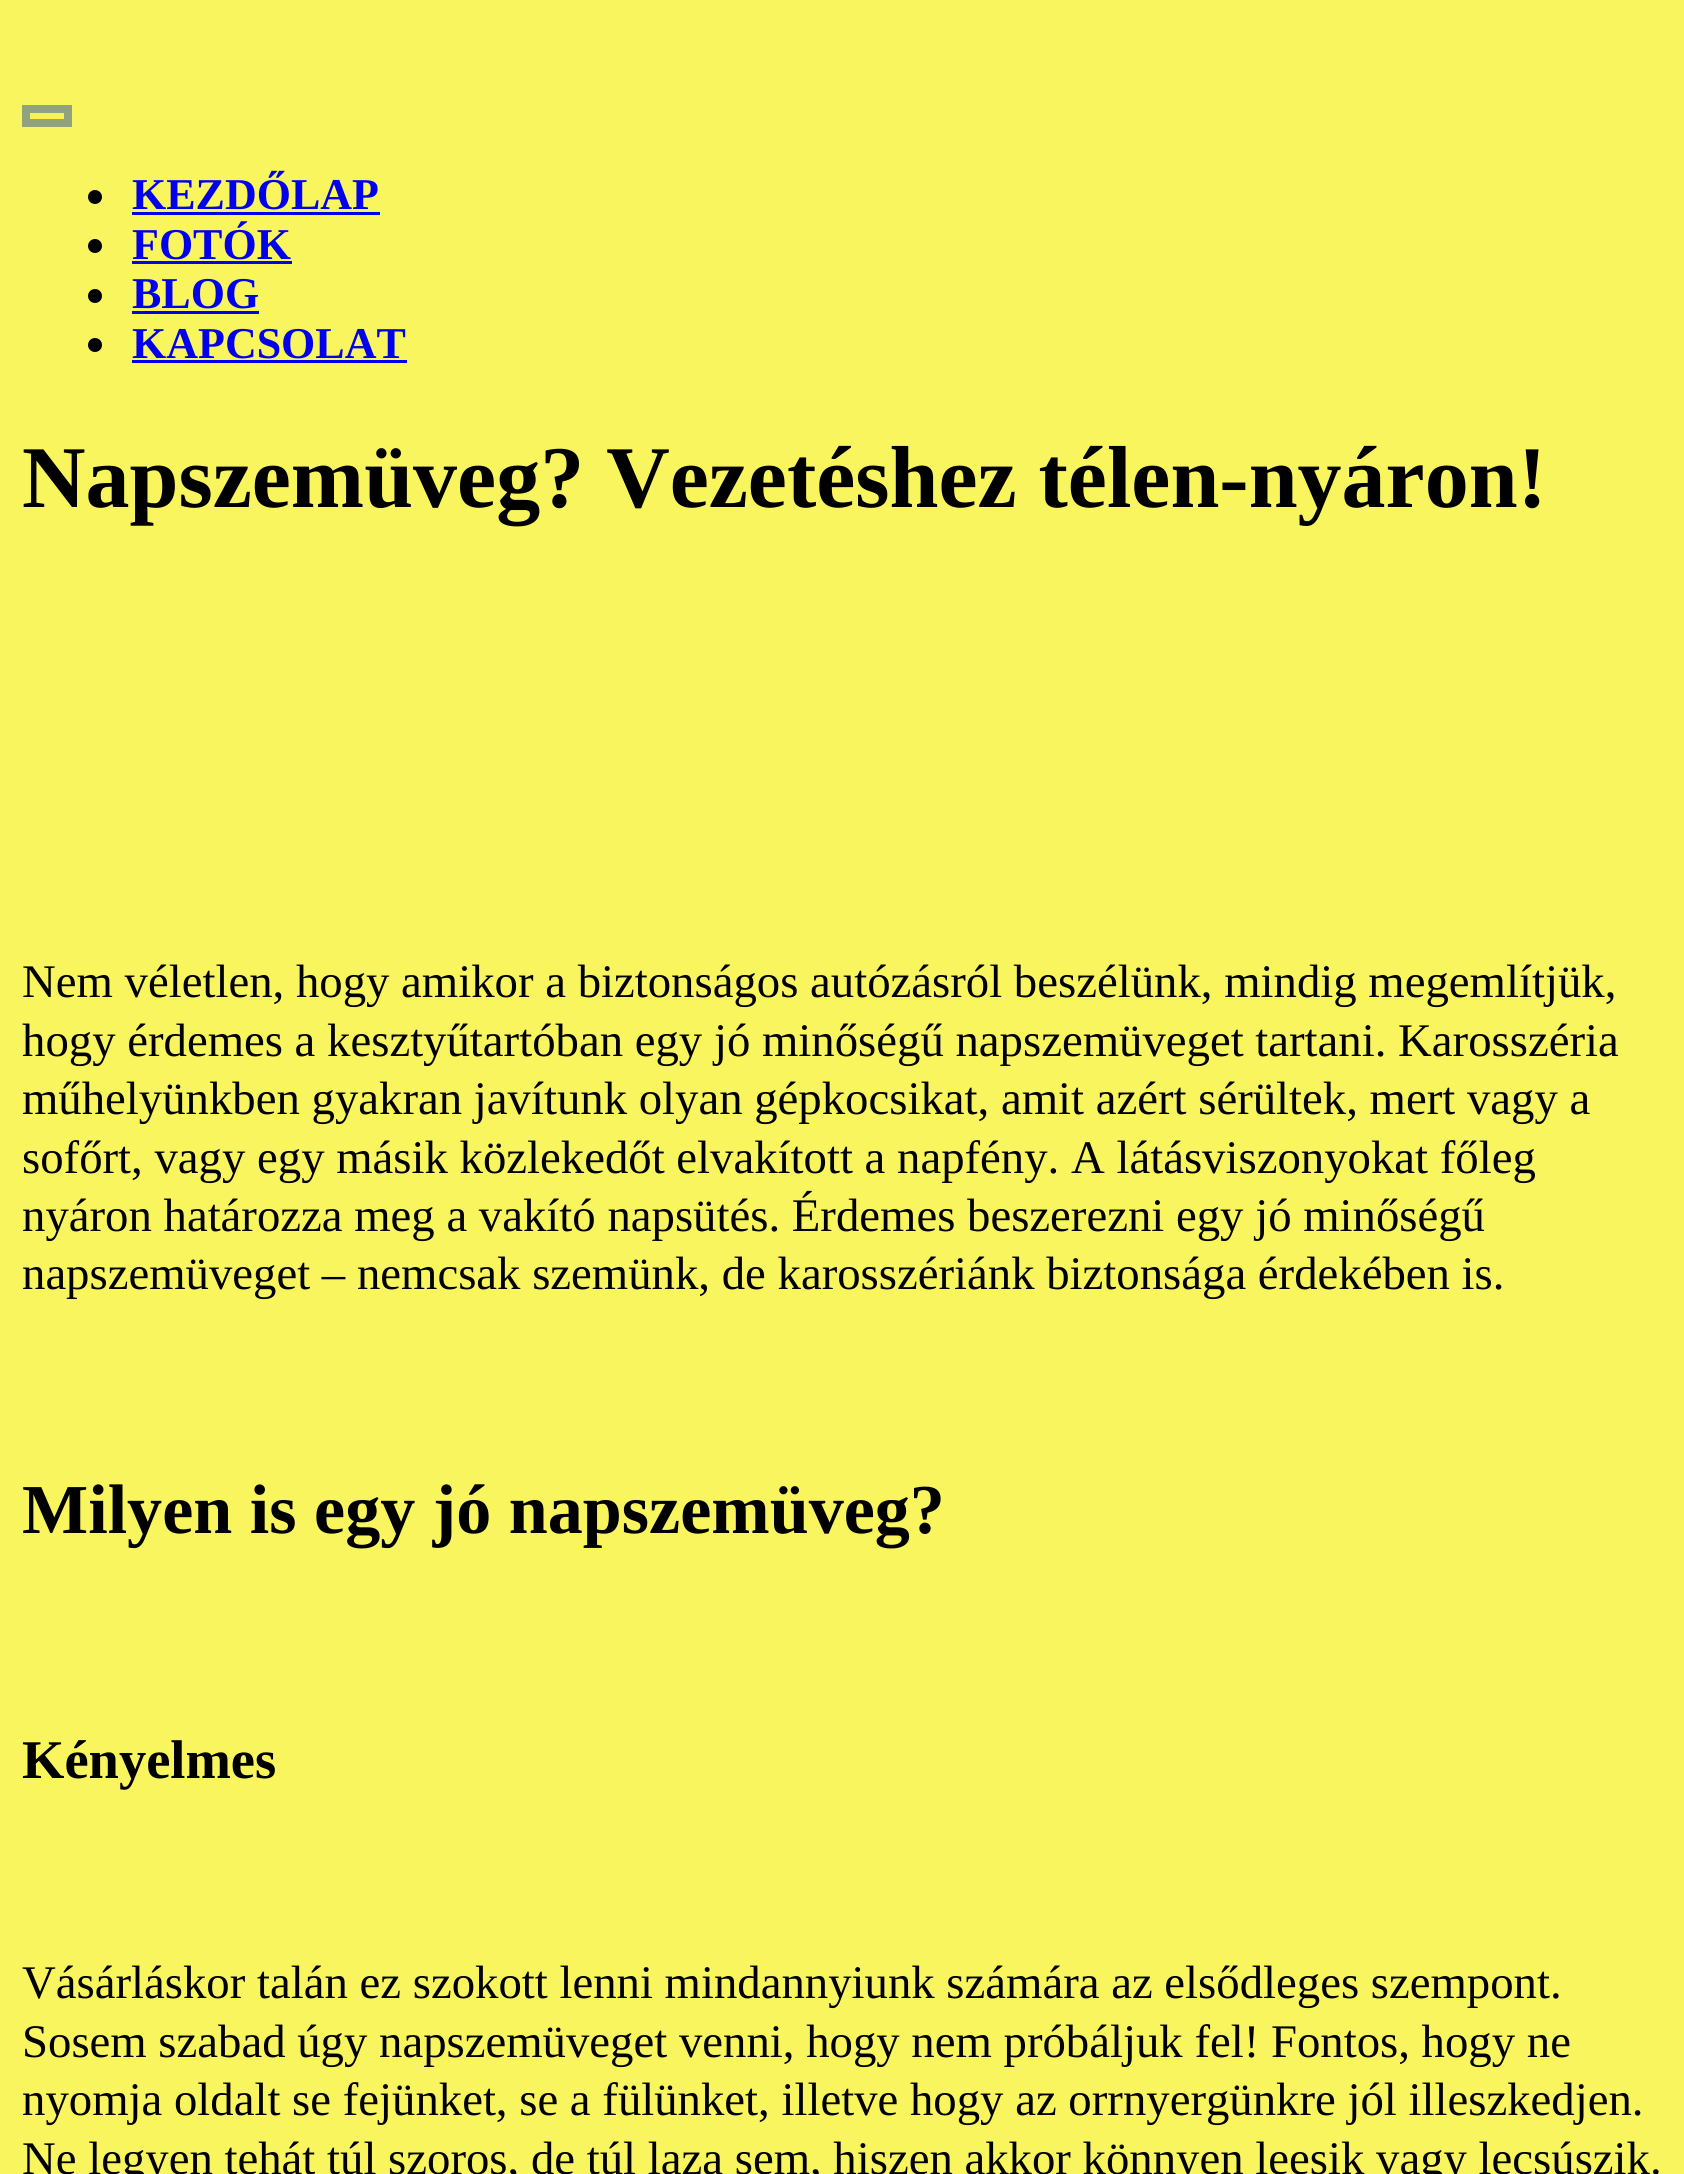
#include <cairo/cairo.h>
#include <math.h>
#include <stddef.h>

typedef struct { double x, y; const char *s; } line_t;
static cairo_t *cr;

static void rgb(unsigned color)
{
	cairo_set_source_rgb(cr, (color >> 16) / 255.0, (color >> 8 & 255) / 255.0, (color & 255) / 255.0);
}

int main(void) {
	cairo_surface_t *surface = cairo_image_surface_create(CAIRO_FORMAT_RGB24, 1684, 2174);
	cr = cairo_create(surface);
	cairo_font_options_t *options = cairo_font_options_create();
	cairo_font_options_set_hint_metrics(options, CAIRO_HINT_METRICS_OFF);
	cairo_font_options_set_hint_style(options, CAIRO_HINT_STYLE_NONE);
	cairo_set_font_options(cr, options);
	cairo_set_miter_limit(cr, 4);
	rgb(0xf9f55f);
	cairo_paint(cr);
	rgb(0xfaf253);
	cairo_rectangle(cr, 26, 109, 42, 14);
	cairo_fill_preserve(cr);
	rgb(0x91a37e);
	cairo_set_line_width(cr, 8);
	cairo_stroke(cr);
	rgb(0x000000);
	cairo_arc(cr, 95, 197, 7, 0, 2 * M_PI);
	cairo_fill(cr);
	rgb(0x0000ee);
	cairo_rectangle(cr, 132, 212, 248, 3);
	cairo_fill(cr);
	rgb(0x000000);
	cairo_arc(cr, 95, 246, 7, 0, 2 * M_PI);
	cairo_fill(cr);
	rgb(0x0000ee);
	cairo_rectangle(cr, 132, 261, 160, 3);
	cairo_fill(cr);
	rgb(0x000000);
	cairo_arc(cr, 95, 296, 7, 0, 2 * M_PI);
	cairo_fill(cr);
	rgb(0x0000ee);
	cairo_rectangle(cr, 132, 311, 127, 3);
	cairo_fill(cr);
	rgb(0x000000);
	cairo_arc(cr, 95, 345, 7, 0, 2 * M_PI);
	cairo_fill(cr);
	rgb(0x0000ee);
	cairo_rectangle(cr, 132, 360, 275, 3);
	cairo_fill(cr);
	cairo_select_font_face(cr, "Liberation Serif", CAIRO_FONT_SLANT_NORMAL, CAIRO_FONT_WEIGHT_BOLD);
	cairo_set_font_size(cr, 44);
	{
		static const line_t items[] = {
			{132, 209, "KEZDŐLAP"},
			{132, 259, "FOTÓK"},
			{132, 308, "BLOG"},
			{132, 358, "KAPCSOLAT"},
		};
		for (size_t i = 0; i < sizeof items / sizeof *items; i++) {
			cairo_move_to(cr, items[i].x, items[i].y);
			cairo_show_text(cr, items[i].s);
		}
	}
	cairo_set_font_size(cr, 88);
	rgb(0x000000);
	cairo_move_to(cr, 22, 507);
	cairo_show_text(cr, "Napszemüveg? Vezetéshez télen-nyáron!");
	cairo_select_font_face(cr, "Liberation Serif", CAIRO_FONT_SLANT_NORMAL, CAIRO_FONT_WEIGHT_NORMAL);
	cairo_set_font_size(cr, 46.75);
	{
		static const line_t items[] = {
			{22, 997, "Nem véletlen, hogy amikor a biztonságos autózásról beszélünk, mindig megemlítjük,"},
			{22, 1056, "hogy érdemes a kesztyűtartóban egy jó minőségű napszemüveget tartani. Karosszéria"},
			{22, 1114, "műhelyünkben gyakran javítunk olyan gépkocsikat, amit azért sérültek, mert vagy a"},
			{22, 1173, "sofőrt, vagy egy másik közlekedőt elvakított a napfény. A látásviszonyokat főleg"},
			{22, 1231, "nyáron határozza meg a vakító napsütés. Érdemes beszerezni egy jó minőségű"},
			{22, 1289, "napszemüveget – nemcsak szemünk, de karosszériánk biztonsága érdekében is."},
		};
		for (size_t i = 0; i < sizeof items / sizeof *items; i++) {
			cairo_move_to(cr, items[i].x, items[i].y);
			cairo_show_text(cr, items[i].s);
		}
	}
	cairo_select_font_face(cr, "Liberation Serif", CAIRO_FONT_SLANT_NORMAL, CAIRO_FONT_WEIGHT_BOLD);
	cairo_set_font_size(cr, 70.1);
	cairo_move_to(cr, 22, 1533);
	cairo_show_text(cr, "Milyen is egy jó napszemüveg?");
	cairo_set_font_size(cr, 54.5);
	cairo_move_to(cr, 22, 1778);
	cairo_show_text(cr, "Kényelmes");
	cairo_select_font_face(cr, "Liberation Serif", CAIRO_FONT_SLANT_NORMAL, CAIRO_FONT_WEIGHT_NORMAL);
	cairo_set_font_size(cr, 46.75);
	{
		static const line_t items[] = {
			{22, 1998, "Vásárláskor talán ez szokott lenni mindannyiunk számára az elsődleges szempont."},
			{22, 2057, "Sosem szabad úgy napszemüveget venni, hogy nem próbáljuk fel! Fontos, hogy ne"},
			{22, 2115, "nyomja oldalt se fejünket, se a fülünket, illetve hogy az orrnyergünkre jól illeszkedjen."},
			{22, 2174, "Ne legyen tehát túl szoros, de túl laza sem, hiszen akkor könnyen leesik vagy lecsúszik."},
		};
		for (size_t i = 0; i < sizeof items / sizeof *items; i++) {
			cairo_move_to(cr, items[i].x, items[i].y);
			cairo_show_text(cr, items[i].s);
		}
	}
	cairo_surface_write_to_png(surface, "page.png");
	cairo_font_options_destroy(options);
	cairo_destroy(cr);
	cairo_surface_destroy(surface);
	return 0;
}
